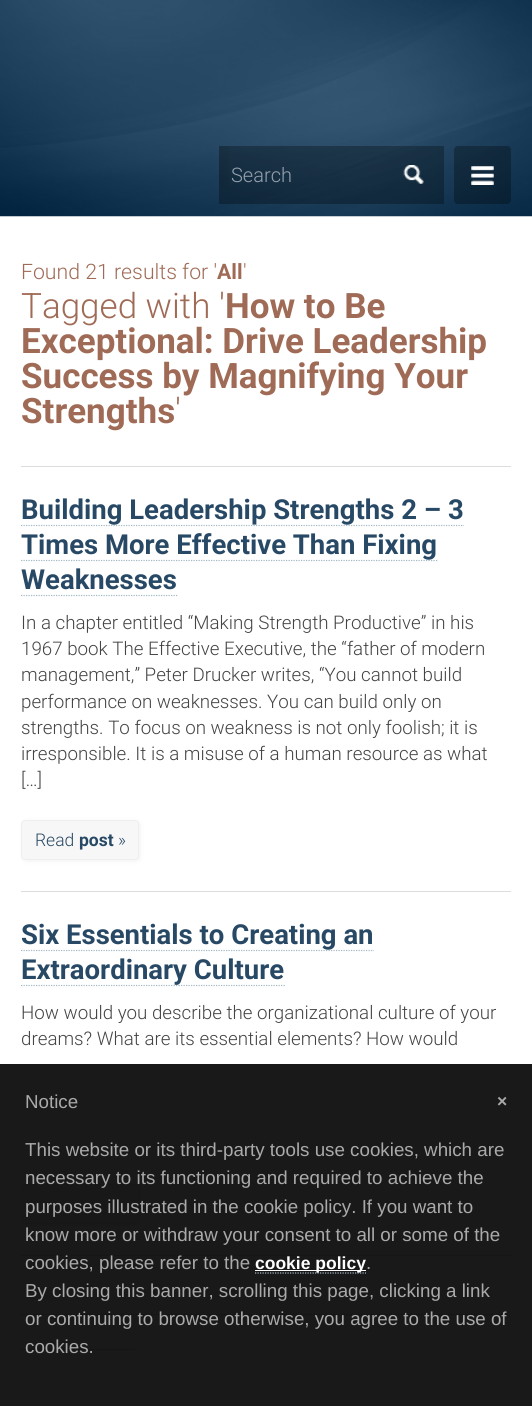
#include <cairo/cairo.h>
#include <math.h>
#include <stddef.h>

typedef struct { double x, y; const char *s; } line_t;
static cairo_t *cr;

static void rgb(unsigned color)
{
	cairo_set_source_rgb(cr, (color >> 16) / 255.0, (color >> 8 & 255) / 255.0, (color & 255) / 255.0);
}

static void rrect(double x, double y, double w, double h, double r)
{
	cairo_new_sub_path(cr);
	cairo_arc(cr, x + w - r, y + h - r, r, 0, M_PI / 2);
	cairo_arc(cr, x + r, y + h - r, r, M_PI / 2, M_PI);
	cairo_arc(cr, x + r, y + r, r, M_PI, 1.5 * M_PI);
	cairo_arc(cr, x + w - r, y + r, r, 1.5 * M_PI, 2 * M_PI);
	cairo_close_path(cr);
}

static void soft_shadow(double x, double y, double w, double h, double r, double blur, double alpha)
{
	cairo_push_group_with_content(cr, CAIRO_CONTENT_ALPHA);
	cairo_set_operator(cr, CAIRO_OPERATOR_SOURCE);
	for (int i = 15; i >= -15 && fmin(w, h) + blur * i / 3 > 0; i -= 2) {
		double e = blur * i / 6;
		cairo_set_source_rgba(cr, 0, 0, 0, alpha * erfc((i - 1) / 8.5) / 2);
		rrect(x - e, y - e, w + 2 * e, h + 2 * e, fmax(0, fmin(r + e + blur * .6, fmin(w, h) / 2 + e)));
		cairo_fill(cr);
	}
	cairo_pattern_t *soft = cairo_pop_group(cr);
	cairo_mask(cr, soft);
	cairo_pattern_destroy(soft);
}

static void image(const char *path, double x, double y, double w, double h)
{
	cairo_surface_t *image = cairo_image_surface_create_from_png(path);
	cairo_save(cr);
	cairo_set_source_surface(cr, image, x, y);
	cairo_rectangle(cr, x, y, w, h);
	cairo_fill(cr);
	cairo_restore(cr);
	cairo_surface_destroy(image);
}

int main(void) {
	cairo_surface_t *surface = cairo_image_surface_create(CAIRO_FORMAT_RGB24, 532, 1406);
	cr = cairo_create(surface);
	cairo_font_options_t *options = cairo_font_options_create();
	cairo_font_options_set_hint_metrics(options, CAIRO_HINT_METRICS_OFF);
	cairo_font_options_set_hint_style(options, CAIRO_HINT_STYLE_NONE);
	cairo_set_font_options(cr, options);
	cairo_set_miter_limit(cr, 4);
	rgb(0xffffff);
	cairo_paint(cr);
	image("img/1.png", 0, 0, 532, 217);
	image("img/2.png", 219, 146, 10, 43);
	cairo_set_source_rgba(cr, 0, 0, 0, 0.3);
	cairo_rectangle(cr, 219, 146, 225, 58);
	cairo_fill(cr);
	image("img/3.png", 403, 165, 21, 19);
	rrect(454, 146, 57, 58, 4);
	cairo_fill(cr);
	image("img/4.png", 471, 166, 23, 19);
	rgb(0xdddddd);
	cairo_rectangle(cr, 21, 466, 490, 1);
	cairo_fill(cr);
	cairo_rectangle(cr, 21, 891, 490, 1);
	cairo_fill(cr);
	cairo_new_path(cr);
	cairo_move_to(cr, 21, 525.5);
	cairo_line_to(cr, 464, 525.5);
	rgb(0xa3b8c5);
	cairo_set_line_width(cr, 1.2);
	cairo_set_dash(cr, (double[]){1.25, 1.25}, 2, 0);
	cairo_stroke(cr);
	cairo_new_path(cr);
	cairo_move_to(cr, 21, 560.5);
	cairo_line_to(cr, 437.5, 560.5);
	cairo_stroke(cr);
	cairo_new_path(cr);
	cairo_move_to(cr, 21, 595.5);
	cairo_line_to(cr, 177.5, 595.5);
	cairo_stroke(cr);
	rgb(0x000000);
	soft_shadow(23, 821, 117, 40, 4, 2.5, 0.06);
	rgb(0xf7f7f7);
	rrect(21.5, 820.5, 117, 39, 3.5);
	cairo_fill_preserve(cr);
	rgb(0xeeeeee);
	cairo_set_line_width(cr, 1);
	cairo_set_dash(cr, NULL, 0, 0);
	cairo_stroke(cr);
	rgb(0xdddddd);
	cairo_rectangle(cr, 21, 1255, 490, 1);
	cairo_fill(cr);
	cairo_new_path(cr);
	cairo_move_to(cr, 21, 950.5);
	cairo_line_to(cr, 374, 950.5);
	rgb(0xa3b8c5);
	cairo_set_line_width(cr, 1.2);
	cairo_set_dash(cr, (double[]){1.25, 1.25}, 2, 0);
	cairo_stroke(cr);
	cairo_new_path(cr);
	cairo_move_to(cr, 21, 985.5);
	cairo_line_to(cr, 285, 985.5);
	cairo_stroke(cr);
	rgb(0x000000);
	soft_shadow(23, 1185, 117, 40, 4, 2.5, 0.06);
	rgb(0xf7f7f7);
	rrect(21.5, 1184.5, 117, 39, 3.5);
	cairo_fill_preserve(cr);
	rgb(0xeeeeee);
	cairo_set_line_width(cr, 1);
	cairo_set_dash(cr, NULL, 0, 0);
	cairo_stroke(cr);
	cairo_new_path(cr);
	cairo_move_to(cr, 21, 1314.5);
	cairo_line_to(cr, 507.5, 1314.5);
	rgb(0xa3b8c5);
	cairo_set_line_width(cr, 1.2);
	cairo_set_dash(cr, (double[]){1.25, 1.25}, 2, 0);
	cairo_stroke(cr);
	cairo_new_path(cr);
	cairo_move_to(cr, 21, 1349.5);
	cairo_line_to(cr, 135, 1349.5);
	cairo_stroke(cr);
	cairo_set_source_rgba(cr, 0, 0, 0, 0.9);
	cairo_rectangle(cr, 0, 1064, 532, 342);
	cairo_fill(cr);
	cairo_new_path(cr);
	cairo_move_to(cr, 255, 1273);
	cairo_line_to(cr, 366, 1273);
	rgb(0xa3b8c5);
	cairo_stroke(cr);
	rgb(0xffffff);
	cairo_rectangle(cr, 255, 1270, 111, 1);
	cairo_fill(cr);
	cairo_select_font_face(cr, "Roboto Light", CAIRO_FONT_SLANT_NORMAL, CAIRO_FONT_WEIGHT_NORMAL);
	cairo_set_font_size(cr, 20);
	rgb(0x95a2b0);
	cairo_move_to(cr, 231, 182);
	cairo_show_text(cr, "Search");
	cairo_set_font_size(cr, 21.25);
	rgb(0xa06b56);
	cairo_move_to(cr, 21, 279);
	cairo_show_text(cr, "Found 21 results for '");
	cairo_select_font_face(cr, "Roboto", CAIRO_FONT_SLANT_NORMAL, CAIRO_FONT_WEIGHT_BOLD);
	cairo_move_to(cr, 217, 279);
	cairo_show_text(cr, "All");
	cairo_select_font_face(cr, "Roboto Light", CAIRO_FONT_SLANT_NORMAL, CAIRO_FONT_WEIGHT_NORMAL);
	cairo_move_to(cr, 243, 279);
	cairo_show_text(cr, "'");
	cairo_set_font_size(cr, 35);
	cairo_move_to(cr, 21, 318);
	cairo_show_text(cr, "Tagged with '");
	cairo_select_font_face(cr, "Roboto", CAIRO_FONT_SLANT_NORMAL, CAIRO_FONT_WEIGHT_BOLD);
	{
		static const line_t items[] = {
			{225, 318, "How to Be"},
			{21, 353, "Exceptional: Drive Leadership"},
			{21, 388, "Success by Magnifying Your"},
			{21, 423, "Strengths"},
		};
		for (size_t i = 0; i < sizeof items / sizeof *items; i++) {
			cairo_move_to(cr, items[i].x, items[i].y);
			cairo_show_text(cr, items[i].s);
		}
	}
	cairo_select_font_face(cr, "Roboto Light", CAIRO_FONT_SLANT_NORMAL, CAIRO_FONT_WEIGHT_NORMAL);
	cairo_move_to(cr, 175, 423);
	cairo_show_text(cr, "'");
	cairo_select_font_face(cr, "Roboto", CAIRO_FONT_SLANT_NORMAL, CAIRO_FONT_WEIGHT_BOLD);
	cairo_set_font_size(cr, 27.5);
	rgb(0x284965);
	{
		static const line_t items[] = {
			{21, 519, "Building Leadership Strengths 2 – 3"},
			{21, 554, "Times More Effective Than Fixing"},
			{21, 589, "Weaknesses"},
		};
		for (size_t i = 0; i < sizeof items / sizeof *items; i++) {
			cairo_move_to(cr, items[i].x, items[i].y);
			cairo_show_text(cr, items[i].s);
		}
	}
	cairo_select_font_face(cr, "Roboto Light", CAIRO_FONT_SLANT_NORMAL, CAIRO_FONT_WEIGHT_NORMAL);
	cairo_set_font_size(cr, 18.75);
	rgb(0x444444);
	{
		static const line_t items[] = {
			{21, 629, "In a chapter entitled “Making Strength Productive” in his"},
			{21, 655, "1967 book The Effective Executive, the “father of modern"},
			{21, 681, "management,” Peter Drucker writes, “You cannot build"},
			{21, 708, "performance on weaknesses. You can build only on"},
			{21, 734, "strengths. To focus on weakness is not only foolish; it is"},
			{21, 760, "irresponsible. It is a misuse of a human resource as what"},
			{21, 786, "[…]"},
		};
		for (size_t i = 0; i < sizeof items / sizeof *items; i++) {
			cairo_move_to(cr, items[i].x, items[i].y);
			cairo_show_text(cr, items[i].s);
		}
	}
	cairo_set_font_size(cr, 17.5);
	rgb(0x284965);
	cairo_move_to(cr, 35, 846);
	cairo_show_text(cr, "Read");
	cairo_select_font_face(cr, "Roboto", CAIRO_FONT_SLANT_NORMAL, CAIRO_FONT_WEIGHT_BOLD);
	cairo_move_to(cr, 79, 846);
	cairo_show_text(cr, "post");
	cairo_select_font_face(cr, "Roboto Light", CAIRO_FONT_SLANT_NORMAL, CAIRO_FONT_WEIGHT_NORMAL);
	cairo_move_to(cr, 118, 846);
	cairo_show_text(cr, "»");
	cairo_select_font_face(cr, "Roboto", CAIRO_FONT_SLANT_NORMAL, CAIRO_FONT_WEIGHT_BOLD);
	cairo_set_font_size(cr, 27.5);
	cairo_move_to(cr, 21, 944);
	cairo_show_text(cr, "Six Essentials to Creating an");
	cairo_move_to(cr, 21, 979);
	cairo_show_text(cr, "Extraordinary Culture");
	cairo_select_font_face(cr, "Roboto Light", CAIRO_FONT_SLANT_NORMAL, CAIRO_FONT_WEIGHT_NORMAL);
	cairo_set_font_size(cr, 18.75);
	rgb(0x444444);
	cairo_move_to(cr, 21, 1019);
	cairo_show_text(cr, "How would you describe the organizational culture of your");
	cairo_move_to(cr, 21, 1045);
	cairo_show_text(cr, "dreams? What are its essential elements? How would");
	cairo_select_font_face(cr, "Liberation Sans", CAIRO_FONT_SLANT_NORMAL, CAIRO_FONT_WEIGHT_NORMAL);
	rgb(0xaaaaaa);
	{
		static const line_t items[] = {
			{25, 1108, "Notice"},
			{25, 1156, "This website or its third-party tools use cookies, which are"},
			{25, 1184, "necessary to its functioning and required to achieve the"},
			{25, 1213, "purposes illustrated in the cookie policy. If you want to"},
			{25, 1241, "know more or withdraw your consent to all or some of the"},
			{25, 1269, "cookies, please refer to the"},
		};
		for (size_t i = 0; i < sizeof items / sizeof *items; i++) {
			cairo_move_to(cr, items[i].x, items[i].y);
			cairo_show_text(cr, items[i].s);
		}
	}
	cairo_select_font_face(cr, "Liberation Sans", CAIRO_FONT_SLANT_NORMAL, CAIRO_FONT_WEIGHT_BOLD);
	cairo_set_font_size(cr, 17.5);
	rgb(0xffffff);
	cairo_move_to(cr, 255, 1269);
	cairo_show_text(cr, "cookie policy");
	cairo_select_font_face(cr, "Liberation Sans", CAIRO_FONT_SLANT_NORMAL, CAIRO_FONT_WEIGHT_NORMAL);
	cairo_set_font_size(cr, 18.75);
	rgb(0xaaaaaa);
	{
		static const line_t items[] = {
			{366, 1269, "."},
			{25, 1297, "By closing this banner, scrolling this page, clicking a link"},
			{25, 1325, "or continuing to browse otherwise, you agree to the use of"},
			{25, 1353, "cookies."},
		};
		for (size_t i = 0; i < sizeof items / sizeof *items; i++) {
			cairo_move_to(cr, items[i].x, items[i].y);
			cairo_show_text(cr, items[i].s);
		}
	}
	cairo_select_font_face(cr, "Liberation Sans", CAIRO_FONT_SLANT_NORMAL, CAIRO_FONT_WEIGHT_BOLD);
	cairo_set_font_size(cr, 17.5);
	cairo_move_to(cr, 497, 1107);
	cairo_show_text(cr, "×");
	cairo_surface_write_to_png(surface, "page.png");
	cairo_font_options_destroy(options);
	cairo_destroy(cr);
	cairo_surface_destroy(surface);
	return 0;
}
